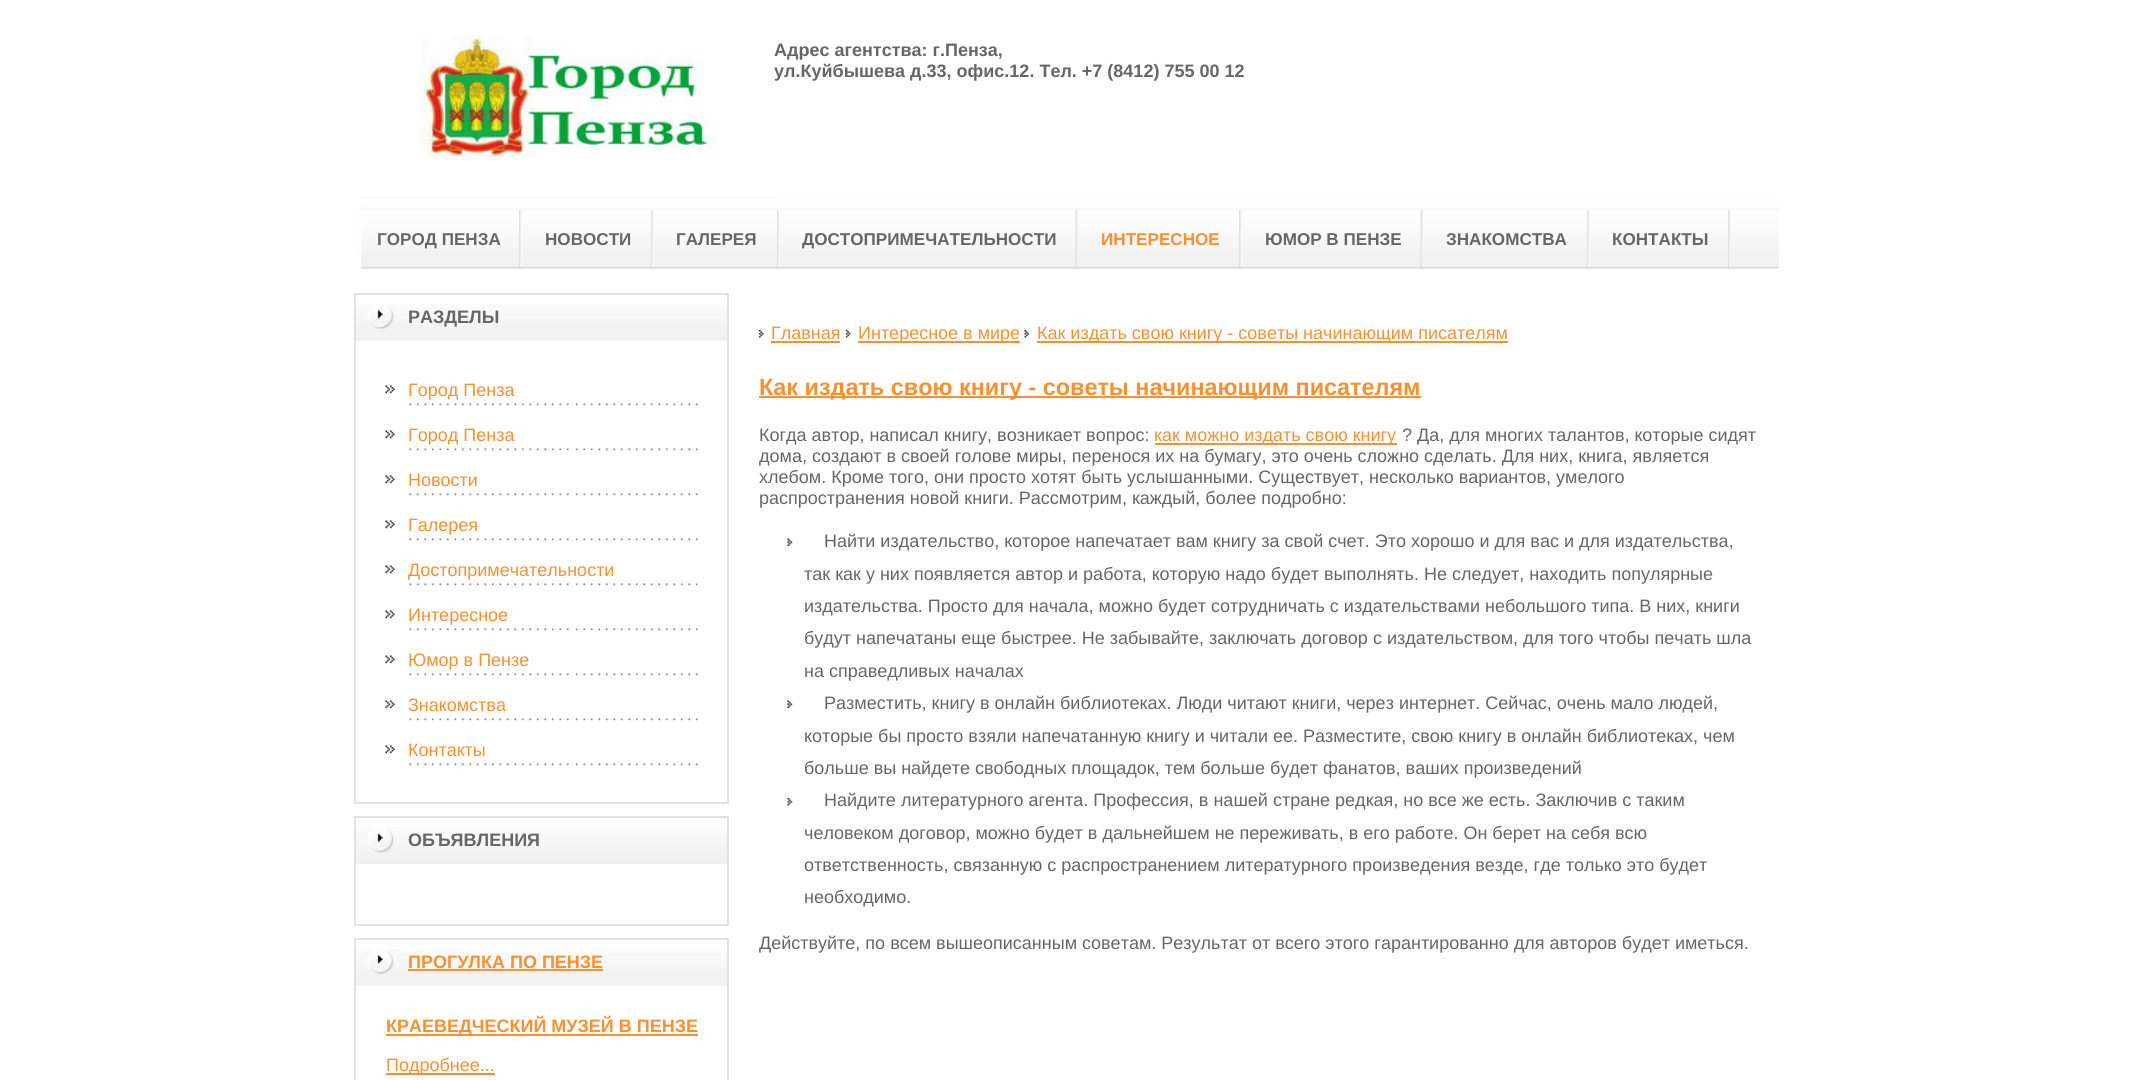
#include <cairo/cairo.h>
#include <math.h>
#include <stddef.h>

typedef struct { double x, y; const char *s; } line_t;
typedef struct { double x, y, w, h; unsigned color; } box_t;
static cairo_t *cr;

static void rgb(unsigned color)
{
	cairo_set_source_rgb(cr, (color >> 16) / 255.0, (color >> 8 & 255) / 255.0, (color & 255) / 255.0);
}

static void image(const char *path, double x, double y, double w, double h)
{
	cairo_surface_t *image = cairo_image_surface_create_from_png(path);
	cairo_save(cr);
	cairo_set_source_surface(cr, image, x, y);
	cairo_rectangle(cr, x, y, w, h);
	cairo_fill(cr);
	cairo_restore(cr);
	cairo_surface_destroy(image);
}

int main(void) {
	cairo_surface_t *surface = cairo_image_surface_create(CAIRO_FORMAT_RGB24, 2132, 1080);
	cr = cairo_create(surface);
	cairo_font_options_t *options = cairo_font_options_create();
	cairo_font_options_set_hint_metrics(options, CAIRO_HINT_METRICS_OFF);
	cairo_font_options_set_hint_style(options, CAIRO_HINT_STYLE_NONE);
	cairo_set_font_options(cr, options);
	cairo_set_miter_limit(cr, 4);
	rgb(0xffffff);
	cairo_paint(cr);
	image("img/1.png", 354, 197, 1425, 60);
	image("img/2.png", 417, 36, 304, 123);
	rgb(0xffffff);
	cairo_rectangle(cr, 774, 197, 1005, 1);
	cairo_fill(cr);
	image("img/3.png", 360, 208, 1419, 61);
	image("img/4.png", 519, 209, 3, 60);
	image("img/4.png", 651, 209, 3, 60);
	image("img/4.png", 777, 209, 3, 60);
	image("img/5.png", 1075, 209, 4, 60);
	image("img/6.png", 1239, 209, 3, 60);
	image("img/5.png", 1420, 209, 4, 60);
	image("img/4.png", 1587, 209, 3, 60);
	image("img/4.png", 1728, 209, 3, 60);
	image("img/7.png", 356, 304, 371, 37);
	cairo_rectangle(cr, 355, 294, 373, 509);
	rgb(0xe3e2e2);
	cairo_stroke(cr);
	image("img/8.png", 385, 385, 313, 21);
	image("img/8.png", 385, 430, 313, 21);
	image("img/8.png", 385, 475, 313, 21);
	image("img/8.png", 385, 520, 313, 21);
	image("img/8.png", 385, 565, 313, 21);
	image("img/8.png", 385, 610, 313, 21);
	image("img/8.png", 385, 655, 313, 21);
	image("img/8.png", 385, 700, 313, 21);
	image("img/8.png", 385, 745, 313, 21);
	image("img/9.png", 356, 827, 371, 37);
	cairo_rectangle(cr, 355, 817, 373, 108);
	cairo_stroke(cr);
	image("img/7.png", 356, 949, 371, 37);
	cairo_rectangle(cr, 355, 939, 373, 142);
	cairo_stroke(cr);
	{
		static const box_t items[] = {
			{408, 969, 195, 2, 0xfc8f30},
			{386, 1034, 312, 2, 0xfc8f30},
			{386, 1073, 109, 2, 0xfc8f30},
		};
		for (size_t i = 0; i < sizeof items / sizeof *items; i++) {
			rgb(items[i].color);
			cairo_rectangle(cr, items[i].x, items[i].y, items[i].w, items[i].h);
			cairo_fill(cr);
		}
	}
	image("img/10.png", 758, 330, 6, 8);
	cairo_rectangle(cr, 771, 341, 69, 2);
	cairo_fill(cr);
	image("img/11.png", 845, 330, 6, 8);
	cairo_rectangle(cr, 858, 341, 162, 2);
	cairo_fill(cr);
	image("img/12.png", 1024, 330, 6, 8);
	{
		static const box_t items[] = {
			{1037, 341, 471, 2, 0xfc8f30},
			{759, 396, 662, 2, 0xfc8f30},
			{1155, 443, 242, 2, 0xfc8f30},
		};
		for (size_t i = 0; i < sizeof items / sizeof *items; i++) {
			rgb(items[i].color);
			cairo_rectangle(cr, items[i].x, items[i].y, items[i].w, items[i].h);
			cairo_fill(cr);
		}
	}
	image("img/13.png", 787, 538, 6, 8);
	image("img/13.png", 787, 700, 6, 8);
	image("img/14.png", 787, 798, 6, 8);
	cairo_select_font_face(cr, "Liberation Sans", CAIRO_FONT_SLANT_NORMAL, CAIRO_FONT_WEIGHT_BOLD);
	cairo_set_font_size(cr, 18);
	rgb(0x666666);
	cairo_move_to(cr, 774, 56);
	cairo_show_text(cr, "Адрес агентства: г.Пенза,");
	cairo_move_to(cr, 774, 77);
	cairo_show_text(cr, "ул.Куйбышева д.33, офис.12. Тел. +7 (8412) 755 00 12");
	cairo_set_font_size(cr, 17.1);
	{
		static const line_t items[] = {
			{377, 245, "ГОРОД ПЕНЗА"},
			{545, 245, "НОВОСТИ"},
			{676, 245, "ГАЛЕРЕЯ"},
			{802, 245, "ДОСТОПРИМЕЧАТЕЛЬНОСТИ"},
		};
		for (size_t i = 0; i < sizeof items / sizeof *items; i++) {
			cairo_move_to(cr, items[i].x, items[i].y);
			cairo_show_text(cr, items[i].s);
		}
	}
	rgb(0xfc8f30);
	cairo_move_to(cr, 1101, 245);
	cairo_show_text(cr, "ИНТЕРЕСНОЕ");
	rgb(0x666666);
	{
		static const line_t items[] = {
			{1265, 245, "ЮМОР В ПЕНЗЕ"},
			{1446, 245, "ЗНАКОМСТВА"},
			{1612, 245, "КОНТАКТЫ"},
		};
		for (size_t i = 0; i < sizeof items / sizeof *items; i++) {
			cairo_move_to(cr, items[i].x, items[i].y);
			cairo_show_text(cr, items[i].s);
		}
	}
	cairo_set_font_size(cr, 18);
	cairo_move_to(cr, 408, 323);
	cairo_show_text(cr, "РАЗДЕЛЫ");
	cairo_select_font_face(cr, "Liberation Sans", CAIRO_FONT_SLANT_NORMAL, CAIRO_FONT_WEIGHT_NORMAL);
	rgb(0xfc8f30);
	{
		static const line_t items[] = {
			{408, 396, "Город Пенза"},
			{408, 441, "Город Пенза"},
			{408, 486, "Новости"},
			{408, 531, "Галерея"},
			{408, 576, "Достопримечательности"},
			{408, 621, "Интересное"},
			{408, 666, "Юмор в Пензе"},
			{408, 711, "Знакомства"},
			{408, 756, "Контакты"},
		};
		for (size_t i = 0; i < sizeof items / sizeof *items; i++) {
			cairo_move_to(cr, items[i].x, items[i].y);
			cairo_show_text(cr, items[i].s);
		}
	}
	cairo_select_font_face(cr, "Liberation Sans", CAIRO_FONT_SLANT_NORMAL, CAIRO_FONT_WEIGHT_BOLD);
	rgb(0x666666);
	cairo_move_to(cr, 408, 846);
	cairo_show_text(cr, "ОБЪЯВЛЕНИЯ");
	rgb(0xfc8f30);
	cairo_move_to(cr, 408, 968);
	cairo_show_text(cr, "ПРОГУЛКА ПО ПЕНЗЕ");
	cairo_move_to(cr, 386, 1032);
	cairo_show_text(cr, "КРАЕВЕДЧЕСКИЙ МУЗЕЙ В ПЕНЗЕ");
	cairo_select_font_face(cr, "Liberation Sans", CAIRO_FONT_SLANT_NORMAL, CAIRO_FONT_WEIGHT_NORMAL);
	{
		static const line_t items[] = {
			{386, 1071, "Подробнее..."},
			{771, 339, "Главная"},
			{858, 339, "Интересное в мире"},
			{1037, 339, "Как издать свою книгу - советы начинающим писателям"},
		};
		for (size_t i = 0; i < sizeof items / sizeof *items; i++) {
			cairo_move_to(cr, items[i].x, items[i].y);
			cairo_show_text(cr, items[i].s);
		}
	}
	cairo_select_font_face(cr, "Liberation Sans", CAIRO_FONT_SLANT_NORMAL, CAIRO_FONT_WEIGHT_BOLD);
	cairo_set_font_size(cr, 23.4);
	cairo_move_to(cr, 759, 395);
	cairo_show_text(cr, "Как издать свою книгу - советы начинающим писателям");
	cairo_select_font_face(cr, "Liberation Sans", CAIRO_FONT_SLANT_NORMAL, CAIRO_FONT_WEIGHT_NORMAL);
	cairo_set_font_size(cr, 18);
	rgb(0x666666);
	cairo_move_to(cr, 759, 441);
	cairo_show_text(cr, "Когда автор, написал книгу, возникает вопрос:");
	rgb(0xfc8f30);
	cairo_move_to(cr, 1154, 441);
	cairo_show_text(cr, "как можно издать свою книгу");
	rgb(0x666666);
	{
		static const line_t items[] = {
			{1402, 441, "? Да, для многих талантов, которые сидят"},
			{759, 462, "дома, создают в своей голове миры, перенося их на бумагу, это очень сложно сделать. Для них, книга, является"},
			{759, 483, "хлебом. Кроме того, они просто хотят быть услышанными. Существует, несколько вариантов, умелого"},
			{759, 504, "распространения новой книги. Рассмотрим, каждый, более подробно:"},
			{824, 547, "Найти издательство, которое напечатает вам книгу за свой счет. Это хорошо и для вас и для издательства,"},
			{804, 580, "так как у них появляется автор и работа, которую надо будет выполнять. Не следует, находить популярные"},
			{804, 612, "издательства. Просто для начала, можно будет сотрудничать с издательствами небольшого типа. В них, книги"},
			{804, 644, "будут напечатаны еще быстрее. Не забывайте, заключать договор с издательством, для того чтобы печать шла"},
			{804, 677, "на справедливых началах"},
			{824, 709, "Разместить, книгу в онлайн библиотеках. Люди читают книги, через интернет. Сейчас, очень мало людей,"},
			{804, 742, "которые бы просто взяли напечатанную книгу и читали ее. Разместите, свою книгу в онлайн библиотеках, чем"},
			{804, 774, "больше вы найдете свободных площадок, тем больше будет фанатов, ваших произведений"},
			{824, 806, "Найдите литературного агента. Профессия, в нашей стране редкая, но все же есть. Заключив с таким"},
			{804, 839, "человеком договор, можно будет в дальнейшем не переживать, в его работе. Он берет на себя всю"},
			{804, 871, "ответственность, связанную с распространением литературного произведения везде, где только это будет"},
			{804, 903, "необходимо."},
			{759, 949, "Действуйте, по всем вышеописанным советам. Результат от всего этого гарантированно для авторов будет иметься."},
		};
		for (size_t i = 0; i < sizeof items / sizeof *items; i++) {
			cairo_move_to(cr, items[i].x, items[i].y);
			cairo_show_text(cr, items[i].s);
		}
	}
	cairo_surface_write_to_png(surface, "page.png");
	cairo_font_options_destroy(options);
	cairo_destroy(cr);
	cairo_surface_destroy(surface);
	return 0;
}
